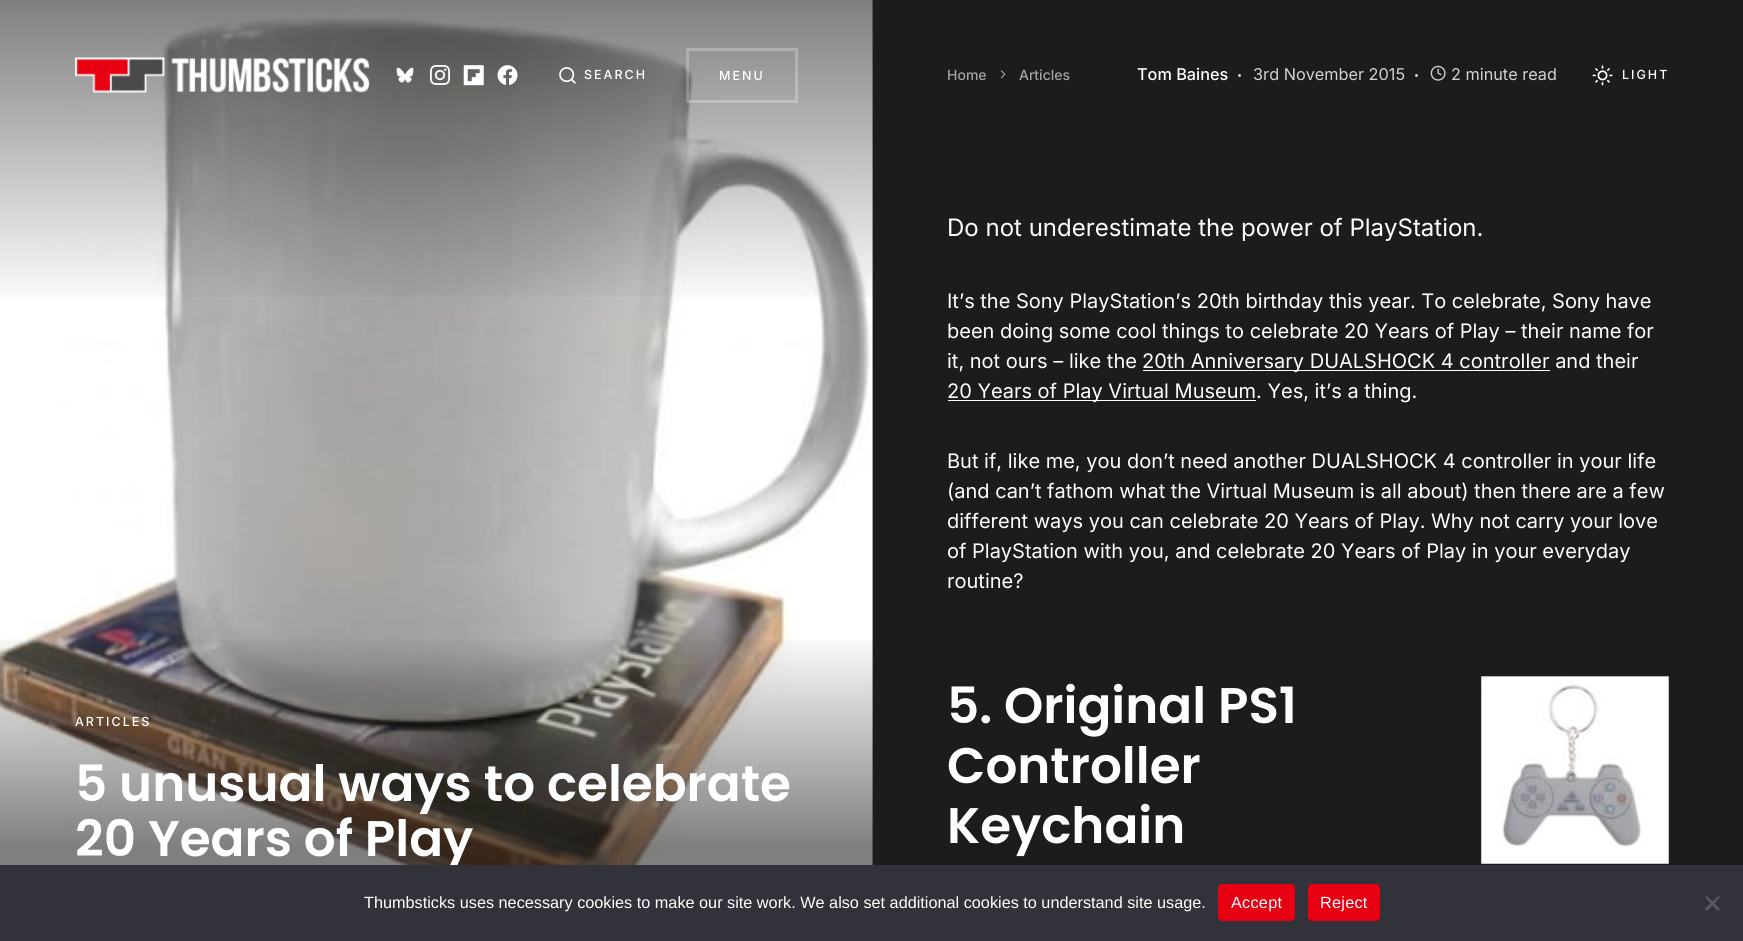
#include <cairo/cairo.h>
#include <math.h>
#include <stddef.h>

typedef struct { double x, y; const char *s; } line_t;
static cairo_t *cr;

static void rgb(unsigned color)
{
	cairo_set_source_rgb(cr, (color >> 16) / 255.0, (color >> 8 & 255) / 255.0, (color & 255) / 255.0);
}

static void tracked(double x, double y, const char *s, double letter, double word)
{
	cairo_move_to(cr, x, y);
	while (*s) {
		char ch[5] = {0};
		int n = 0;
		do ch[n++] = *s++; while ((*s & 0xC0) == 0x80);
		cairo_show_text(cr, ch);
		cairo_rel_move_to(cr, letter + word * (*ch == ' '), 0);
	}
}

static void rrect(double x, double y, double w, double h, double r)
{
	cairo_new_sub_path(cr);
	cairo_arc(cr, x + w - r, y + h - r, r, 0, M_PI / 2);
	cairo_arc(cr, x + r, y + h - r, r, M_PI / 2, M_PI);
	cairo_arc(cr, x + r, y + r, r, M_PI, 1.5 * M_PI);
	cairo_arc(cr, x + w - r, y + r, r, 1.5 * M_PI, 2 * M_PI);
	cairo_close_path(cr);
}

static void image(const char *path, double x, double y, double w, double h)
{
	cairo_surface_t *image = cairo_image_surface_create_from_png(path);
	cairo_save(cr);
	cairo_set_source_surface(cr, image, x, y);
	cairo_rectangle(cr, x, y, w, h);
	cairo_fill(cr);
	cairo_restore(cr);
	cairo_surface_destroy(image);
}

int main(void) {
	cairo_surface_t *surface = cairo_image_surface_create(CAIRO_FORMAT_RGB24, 1743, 941);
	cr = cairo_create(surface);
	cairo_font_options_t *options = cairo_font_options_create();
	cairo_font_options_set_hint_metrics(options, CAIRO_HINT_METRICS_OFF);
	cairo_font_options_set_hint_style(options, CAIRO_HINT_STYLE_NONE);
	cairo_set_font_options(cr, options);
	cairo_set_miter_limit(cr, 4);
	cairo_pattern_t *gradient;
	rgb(0x1c1c1c);
	cairo_paint(cr);
	rgb(0x494949);
	cairo_rectangle(cr, 872, 0, 1, 865);
	cairo_fill(cr);
	image("img/1.png", 0, 0, 873, 865);
	gradient = cairo_pattern_create_linear(436, 0, 436, 941);
	cairo_pattern_add_color_stop_rgba(gradient, 0, 0, 0, 0, 0.5);
	cairo_pattern_add_color_stop_rgba(gradient, 0.33, 0, 0, 0, 0);
	cairo_set_source(cr, gradient);
	cairo_pattern_destroy(gradient);
	cairo_rectangle(cr, 0, 0, 873, 297);
	cairo_fill(cr);
	gradient = cairo_pattern_create_linear(436, 0, 436, 941);
	cairo_pattern_add_color_stop_rgba(gradient, 0.67, 0, 0, 0, 0);
	cairo_pattern_add_color_stop_rgba(gradient, 0.9, 0, 0, 0, 0.5);
	cairo_set_source(cr, gradient);
	cairo_pattern_destroy(gradient);
	cairo_rectangle(cr, 0, 640, 873, 225);
	cairo_fill(cr);
	image("img/2.png", 75, 57, 295, 36);
	image("img/3.png", 396, 67, 18, 16);
	image("img/4.png", 430, 65, 20, 20);
	image("img/5.png", 463, 65, 21, 21);
	image("img/6.png", 497, 65, 21, 20);
	image("img/7.png", 559, 67, 17, 17);
	cairo_rectangle(cr, 687.5, 49.5, 109, 52);
	cairo_set_source_rgba(cr, 1, 1, 1, 0.25);
	cairo_set_line_width(cr, 3);
	cairo_stroke(cr);
	image("img/8.png", 1000, 70, 6, 9);
	rgb(0xd2d2d2);
	cairo_arc(cr, 1239.5, 75.5, 1.5, 0, 2 * M_PI);
	cairo_fill(cr);
	cairo_arc(cr, 1416.5, 75.5, 1.5, 0, 2 * M_PI);
	cairo_fill(cr);
	image("img/9.png", 1430, 65, 16, 16);
	image("img/10.png", 1592, 65, 21, 21);
	rgb(0xffffff);
	cairo_rectangle(cr, 1143, 370, 407, 1);
	cairo_fill(cr);
	cairo_rectangle(cr, 948, 400, 308, 1);
	cairo_fill(cr);
	image("img/11.png", 1481, 676, 188, 188);
	cairo_select_font_face(cr, "Inter Medium", CAIRO_FONT_SLANT_NORMAL, CAIRO_FONT_WEIGHT_NORMAL);
	cairo_set_font_size(cr, 12.5);
	{
		static const line_t items[] = {
			{584, 79, "SEARCH"},
			{719, 80, "MENU"},
			{75, 726, "ARTICLES"},
		};
		for (size_t i = 0; i < sizeof items / sizeof *items; i++) {
			tracked(items[i].x, items[i].y, items[i].s, 2, 0);
		}
	}
	cairo_select_font_face(cr, "Poppins SemiBold", CAIRO_FONT_SLANT_NORMAL, CAIRO_FONT_WEIGHT_NORMAL);
	cairo_set_font_size(cr, 50);
	cairo_move_to(cr, 75, 801);
	cairo_show_text(cr, "5 unusual ways to celebrate");
	cairo_move_to(cr, 75, 856);
	cairo_show_text(cr, "20 Years of Play");
	cairo_select_font_face(cr, "Inter Medium", CAIRO_FONT_SLANT_NORMAL, CAIRO_FONT_WEIGHT_NORMAL);
	cairo_set_font_size(cr, 14);
	rgb(0xa4a4a5);
	cairo_move_to(cr, 947, 80);
	cairo_show_text(cr, "Home");
	cairo_move_to(cr, 1019, 80);
	cairo_show_text(cr, "Articles");
	cairo_set_font_size(cr, 16.25);
	rgb(0xffffff);
	cairo_move_to(cr, 1137, 80);
	cairo_show_text(cr, "Tom Baines");
	cairo_select_font_face(cr, "Inter", CAIRO_FONT_SLANT_NORMAL, CAIRO_FONT_WEIGHT_NORMAL);
	rgb(0xd2d2d2);
	cairo_move_to(cr, 1253, 80);
	cairo_show_text(cr, "3rd November 2015");
	cairo_move_to(cr, 1451, 80);
	cairo_show_text(cr, "2 minute read");
	cairo_select_font_face(cr, "Inter Medium", CAIRO_FONT_SLANT_NORMAL, CAIRO_FONT_WEIGHT_NORMAL);
	cairo_set_font_size(cr, 12.5);
	rgb(0xffffff);
	tracked(1622, 79, "LIGHT", 2, 0);
	cairo_select_font_face(cr, "Inter", CAIRO_FONT_SLANT_NORMAL, CAIRO_FONT_WEIGHT_NORMAL);
	cairo_set_font_size(cr, 24);
	cairo_move_to(cr, 947, 236);
	cairo_show_text(cr, "Do not underestimate the power of PlayStation.");
	cairo_set_font_size(cr, 20);
	{
		static const line_t items[] = {
			{947, 308, "It’s the Sony PlayStation’s 20th birthday this year. To celebrate, Sony have"},
			{947, 338, "been doing some cool things to celebrate 20 Years of Play – their name for"},
			{947, 368, "it, not ours – like the"},
			{1142, 368, "20th Anniversary DUALSHOCK 4 controller and their"},
			{947, 398, "20 Years of Play Virtual Museum. Yes, it’s a thing."},
			{947, 468, "But if, like me, you don’t need another DUALSHOCK 4 controller in your life"},
			{947, 498, "(and can’t fathom what the Virtual Museum is all about) then there are a few"},
			{947, 528, "different ways you can celebrate 20 Years of Play. Why not carry your love"},
			{947, 558, "of PlayStation with you, and celebrate 20 Years of Play in your everyday"},
			{947, 588, "routine?"},
		};
		for (size_t i = 0; i < sizeof items / sizeof *items; i++) {
			cairo_move_to(cr, items[i].x, items[i].y);
			cairo_show_text(cr, items[i].s);
		}
	}
	cairo_select_font_face(cr, "Poppins SemiBold", CAIRO_FONT_SLANT_NORMAL, CAIRO_FONT_WEIGHT_NORMAL);
	cairo_set_font_size(cr, 50);
	{
		static const line_t items[] = {
			{947, 723, "5. Original PS1"},
			{947, 783, "Controller"},
			{947, 843, "Keychain"},
		};
		for (size_t i = 0; i < sizeof items / sizeof *items; i++) {
			cairo_move_to(cr, items[i].x, items[i].y);
			cairo_show_text(cr, items[i].s);
		}
	}
	rgb(0x32323a);
	cairo_rectangle(cr, 0, 865, 1743, 76);
	cairo_fill(cr);
	cairo_select_font_face(cr, "Liberation Sans", CAIRO_FONT_SLANT_NORMAL, CAIRO_FONT_WEIGHT_NORMAL);
	cairo_set_font_size(cr, 16.25);
	rgb(0xffffff);
	cairo_move_to(cr, 364, 908);
	cairo_show_text(cr, "Thumbsticks uses necessary cookies to make our site work. We also set additional cookies to understand site usage.");
	rgb(0xe60012);
	rrect(1218, 884, 77, 37, 4);
	cairo_fill(cr);
	rgb(0xffffff);
	tracked(1231, 908, "Accept", 0.25, 0);
	rgb(0xe60012);
	rrect(1308, 884, 72, 37, 4);
	cairo_fill(cr);
	rgb(0xffffff);
	tracked(1320, 908, "Reject", 0.25, 0);
	rgb(0x59595d);
	cairo_new_path(cr);
	cairo_move_to(cr, 1718, 896);
	cairo_line_to(cr, 1720, 897.5);
	cairo_line_to(cr, 1707, 911);
	cairo_line_to(cr, 1705, 909);
	cairo_close_path(cr);
	cairo_fill(cr);
	cairo_new_path(cr);
	cairo_move_to(cr, 1705, 897.5);
	cairo_line_to(cr, 1707, 896);
	cairo_line_to(cr, 1720, 909);
	cairo_line_to(cr, 1718, 911);
	cairo_close_path(cr);
	cairo_fill(cr);
	cairo_surface_write_to_png(surface, "page.png");
	cairo_font_options_destroy(options);
	cairo_destroy(cr);
	cairo_surface_destroy(surface);
	return 0;
}
